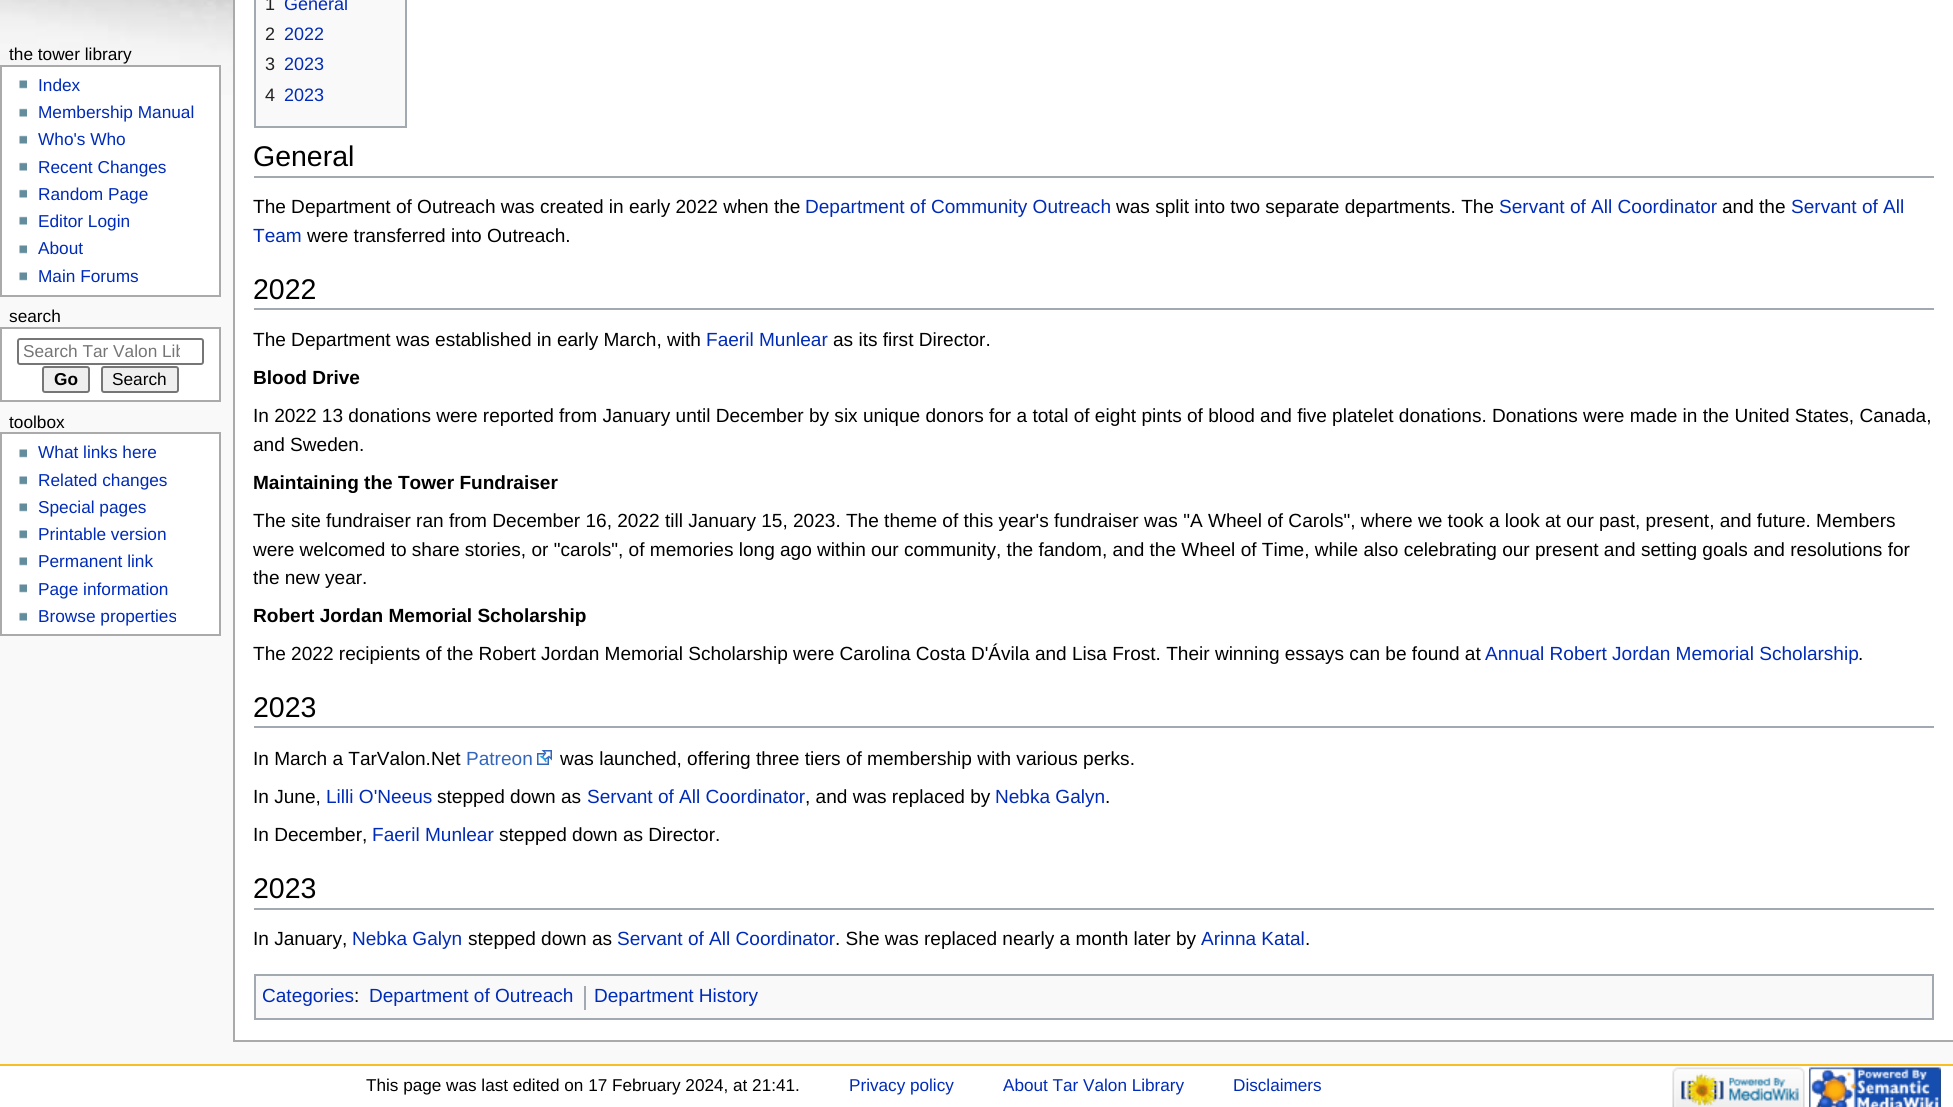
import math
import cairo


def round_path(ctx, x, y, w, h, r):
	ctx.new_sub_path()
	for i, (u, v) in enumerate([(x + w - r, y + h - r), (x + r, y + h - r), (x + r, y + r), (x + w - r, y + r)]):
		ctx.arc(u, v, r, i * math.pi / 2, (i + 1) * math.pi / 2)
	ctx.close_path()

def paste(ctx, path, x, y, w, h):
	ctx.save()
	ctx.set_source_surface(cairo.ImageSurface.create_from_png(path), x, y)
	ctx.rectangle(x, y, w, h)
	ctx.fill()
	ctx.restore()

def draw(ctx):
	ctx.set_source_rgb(0.976, 0.976, 0.976)
	ctx.paint()
	paste(ctx, 'media/1.png', 0, 0, 233, 95)
	ctx.select_font_face('Liberation Sans')
	ctx.set_font_size(17.25)
	ctx.set_source_rgb(0, 0, 0)
	ctx.move_to(9, 60)
	ctx.show_text('the tower library')
	ctx.set_source_rgb(1, 1, 1)
	ctx.rectangle(1, 66, 219, 230)
	ctx.fill_preserve()
	ctx.set_source_rgb(0.667, 0.667, 0.667)
	ctx.stroke()
	paste(ctx, 'media/2.png', 19, 80, 8, 9)
	ctx.set_source_rgb(0, 0.169, 0.722)
	ctx.move_to(38, 91)
	ctx.show_text('Index')
	paste(ctx, 'media/3.png', 19, 108, 8, 9)
	ctx.move_to(38, 118)
	ctx.show_text('Membership Manual')
	paste(ctx, 'media/3.png', 19, 135, 8, 9)
	ctx.move_to(38, 145)
	ctx.show_text('Who\'s Who')
	paste(ctx, 'media/3.png', 19, 162, 8, 9)
	ctx.move_to(38, 173)
	ctx.show_text('Recent Changes')
	paste(ctx, 'media/3.png', 19, 189, 8, 9)
	ctx.move_to(38, 200)
	ctx.show_text('Random Page')
	paste(ctx, 'media/3.png', 19, 216, 8, 9)
	ctx.move_to(38, 227)
	ctx.show_text('Editor Login')
	paste(ctx, 'media/2.png', 19, 245, 8, 9)
	ctx.move_to(38, 254)
	ctx.show_text('About')
	paste(ctx, 'media/2.png', 19, 272, 8, 9)
	ctx.move_to(38, 282)
	ctx.show_text('Main Forums')
	ctx.set_source_rgb(0, 0, 0)
	ctx.move_to(9, 322)
	ctx.show_text('search')
	ctx.set_source_rgb(1, 1, 1)
	ctx.rectangle(1, 328, 219, 73)
	ctx.fill_preserve()
	ctx.set_source_rgb(0.667, 0.667, 0.667)
	ctx.stroke()
	round_path(ctx, 18, 339, 185, 25, 2)
	ctx.set_source_rgb(0.463, 0.463, 0.463)
	ctx.stroke()
	ctx.save()
	ctx.rectangle(23, 342, 157, 18)
	ctx.clip()
	ctx.set_source_rgb(0.459, 0.459, 0.459)
	ctx.move_to(23, 357)
	ctx.show_text('Search Tar Valon Lib')
	ctx.restore()
	ctx.set_source_rgb(0.937, 0.937, 0.937)
	round_path(ctx, 43, 367, 46, 25, 2)
	ctx.fill_preserve()
	ctx.set_source_rgb(0.463, 0.463, 0.463)
	ctx.stroke()
	ctx.select_font_face('Liberation Sans', cairo.FONT_SLANT_NORMAL, cairo.FONT_WEIGHT_BOLD)
	ctx.set_source_rgb(0, 0, 0)
	ctx.move_to(54, 385)
	ctx.show_text('Go')
	ctx.set_source_rgb(0.937, 0.937, 0.937)
	round_path(ctx, 102, 367, 76, 25, 2)
	ctx.fill_preserve()
	ctx.set_source_rgb(0.463, 0.463, 0.463)
	ctx.stroke()
	ctx.select_font_face('Liberation Sans')
	ctx.set_source_rgb(0, 0, 0)
	ctx.move_to(112, 385)
	ctx.show_text('Search')
	ctx.move_to(9, 428)
	ctx.show_text('toolbox')
	ctx.set_source_rgb(1, 1, 1)
	ctx.rectangle(1, 433, 219, 202)
	ctx.fill_preserve()
	ctx.set_source_rgb(0.667, 0.667, 0.667)
	ctx.stroke()
	paste(ctx, 'media/2.png', 19, 449, 8, 9)
	ctx.set_source_rgb(0, 0.169, 0.722)
	ctx.move_to(38, 458)
	ctx.show_text('What links here')
	paste(ctx, 'media/2.png', 19, 476, 8, 9)
	ctx.move_to(38, 486)
	ctx.show_text('Related changes')
	paste(ctx, 'media/2.png', 19, 503, 8, 9)
	ctx.move_to(38, 513)
	ctx.show_text('Special pages')
	paste(ctx, 'media/2.png', 19, 530, 8, 9)
	ctx.move_to(38, 540)
	ctx.show_text('Printable version')
	paste(ctx, 'media/2.png', 19, 557, 8, 9)
	ctx.move_to(38, 567)
	ctx.show_text('Permanent link')
	paste(ctx, 'media/2.png', 19, 584, 8, 9)
	ctx.move_to(38, 595)
	ctx.show_text('Page information')
	paste(ctx, 'media/3.png', 19, 612, 8, 9)
	ctx.move_to(38, 622)
	ctx.show_text('Browse properties')
	ctx.set_source_rgb(1, 1, 1)
	ctx.rectangle(235, 0, 1718, 1040)
	ctx.fill()
	ctx.set_source_rgb(0.667, 0.667, 0.667)
	ctx.rectangle(233, 1040, 1720, 2)
	ctx.rectangle(233, 0, 2, 1041)
	ctx.fill()
	ctx.set_source_rgb(0.973, 0.976, 0.98)
	ctx.rectangle(255, -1, 151, 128)
	ctx.fill_preserve()
	ctx.set_source_rgb(0.635, 0.663, 0.694)
	ctx.stroke()
	ctx.set_font_size(18)
	ctx.set_source_rgb(0.133, 0.133, 0.133)
	ctx.move_to(265, 10)
	ctx.show_text('1')
	ctx.set_source_rgb(0, 0.169, 0.722)
	ctx.move_to(284, 10)
	ctx.show_text('General')
	ctx.set_source_rgb(0.133, 0.133, 0.133)
	ctx.move_to(265, 40)
	ctx.show_text('2')
	ctx.set_source_rgb(0, 0.169, 0.722)
	ctx.move_to(284, 40)
	ctx.show_text('2022')
	ctx.set_source_rgb(0.133, 0.133, 0.133)
	ctx.move_to(265, 70)
	ctx.show_text('3')
	ctx.set_source_rgb(0, 0.169, 0.722)
	ctx.move_to(284, 70)
	ctx.show_text('2023')
	ctx.set_source_rgb(0.133, 0.133, 0.133)
	ctx.move_to(265, 101)
	ctx.show_text('4')
	ctx.set_source_rgb(0, 0.169, 0.722)
	ctx.move_to(284, 101)
	ctx.show_text('2023')
	ctx.set_source_rgb(0.635, 0.663, 0.694)
	ctx.rectangle(254, 176, 1680, 2)
	ctx.fill()
	ctx.set_font_size(28.5)
	ctx.set_source_rgb(0, 0, 0)
	ctx.move_to(253, 166)
	ctx.show_text('General')
	ctx.set_font_size(19.05)
	ctx.move_to(253, 213)
	ctx.show_text('The Department of Outreach was created in early 2022 when the')
	ctx.set_source_rgb(0, 0.169, 0.722)
	ctx.move_to(805, 213)
	ctx.show_text('Department of Community Outreach')
	ctx.set_source_rgb(0, 0, 0)
	ctx.move_to(1116, 213)
	ctx.show_text('was split into two separate departments. The')
	ctx.set_source_rgb(0, 0.169, 0.722)
	ctx.move_to(1499, 213)
	ctx.show_text('Servant of All Coordinator')
	ctx.set_source_rgb(0, 0, 0)
	ctx.move_to(1722, 213)
	ctx.show_text('and the')
	ctx.set_source_rgb(0, 0.169, 0.722)
	ctx.move_to(1791, 213)
	ctx.show_text('Servant of All')
	ctx.move_to(253, 242)
	ctx.show_text('Team')
	ctx.set_source_rgb(0, 0, 0)
	ctx.move_to(307, 242)
	ctx.show_text('were transferred into Outreach.')
	ctx.set_source_rgb(0.635, 0.663, 0.694)
	ctx.rectangle(254, 308, 1680, 2)
	ctx.fill()
	ctx.set_font_size(28.5)
	ctx.set_source_rgb(0, 0, 0)
	ctx.move_to(253, 299)
	ctx.show_text('2022')
	ctx.set_font_size(19.05)
	ctx.move_to(253, 346)
	ctx.show_text('The Department was established in early March, with')
	ctx.set_source_rgb(0, 0.169, 0.722)
	ctx.move_to(706, 346)
	ctx.show_text('Faeril Munlear')
	ctx.set_source_rgb(0, 0, 0)
	ctx.move_to(833, 346)
	ctx.show_text('as its first Director.')
	ctx.select_font_face('Liberation Sans', cairo.FONT_SLANT_NORMAL, cairo.FONT_WEIGHT_BOLD)
	ctx.move_to(253, 384)
	ctx.show_text('Blood Drive')
	ctx.select_font_face('Liberation Sans')
	ctx.move_to(253, 422)
	ctx.show_text('In 2022 13 donations were reported from January until December by six unique donors for a total of eight pints of blood and five platelet donations. Donations were made in the United States, Canada,')
	ctx.move_to(253, 451)
	ctx.show_text('and Sweden.')
	ctx.select_font_face('Liberation Sans', cairo.FONT_SLANT_NORMAL, cairo.FONT_WEIGHT_BOLD)
	ctx.move_to(253, 489)
	ctx.show_text('Maintaining the Tower Fundraiser')
	ctx.select_font_face('Liberation Sans')
	for x, y, s in [
		(253, 527, 'The site fundraiser ran from December 16, 2022 till January 15, 2023. The theme of this year\'s fundraiser was "A Wheel of Carols", where we took a look at our past, present, and future. Members'),
		(253, 556, 'were welcomed to share stories, or "carols", of memories long ago within our community, the fandom, and the Wheel of Time, while also celebrating our present and setting goals and resolutions for'),
		(253, 584, 'the new year.'),
	]:
		ctx.move_to(x, y)
		ctx.show_text(s)
	ctx.select_font_face('Liberation Sans', cairo.FONT_SLANT_NORMAL, cairo.FONT_WEIGHT_BOLD)
	ctx.move_to(253, 622)
	ctx.show_text('Robert Jordan Memorial Scholarship')
	ctx.select_font_face('Liberation Sans')
	ctx.move_to(253, 660)
	ctx.show_text('The 2022 recipients of the Robert Jordan Memorial Scholarship were Carolina Costa D\'Ávila and Lisa Frost. Their winning essays can be found at')
	ctx.set_source_rgb(0, 0.169, 0.722)
	ctx.move_to(1485, 660)
	ctx.show_text('Annual Robert Jordan Memorial Scholarship')
	ctx.set_source_rgb(0, 0, 0)
	ctx.move_to(1858, 660)
	ctx.show_text('.')
	ctx.set_source_rgb(0.635, 0.663, 0.694)
	ctx.rectangle(254, 726, 1680, 2)
	ctx.fill()
	ctx.set_font_size(28.5)
	ctx.set_source_rgb(0, 0, 0)
	ctx.move_to(253, 717)
	ctx.show_text('2023')
	ctx.set_font_size(19.05)
	ctx.move_to(253, 765)
	ctx.show_text('In March a TarValon.Net')
	ctx.set_source_rgb(0.2, 0.4, 0.733)
	ctx.move_to(466, 765)
	ctx.show_text('Patreon')
	paste(ctx, 'media/4.png', 537, 750, 15, 15)
	ctx.set_source_rgb(0, 0, 0)
	ctx.move_to(560, 765)
	ctx.show_text('was launched, offering three tiers of membership with various perks.')
	ctx.move_to(253, 803)
	ctx.show_text('In June,')
	ctx.set_source_rgb(0, 0.169, 0.722)
	ctx.move_to(326, 803)
	ctx.show_text('Lilli O\'Neeus')
	ctx.set_source_rgb(0, 0, 0)
	ctx.move_to(437, 803)
	ctx.show_text('stepped down as')
	ctx.set_source_rgb(0, 0.169, 0.722)
	ctx.move_to(587, 803)
	ctx.show_text('Servant of All Coordinator')
	ctx.set_source_rgb(0, 0, 0)
	ctx.move_to(805, 803)
	ctx.show_text(', and was replaced by')
	ctx.set_source_rgb(0, 0.169, 0.722)
	ctx.move_to(995, 803)
	ctx.show_text('Nebka Galyn')
	ctx.set_source_rgb(0, 0, 0)
	ctx.move_to(1105, 803)
	ctx.show_text('.')
	ctx.move_to(253, 841)
	ctx.show_text('In December,')
	ctx.set_source_rgb(0, 0.169, 0.722)
	ctx.move_to(372, 841)
	ctx.show_text('Faeril Munlear')
	ctx.set_source_rgb(0, 0, 0)
	ctx.move_to(499, 841)
	ctx.show_text('stepped down as Director.')
	ctx.set_source_rgb(0.635, 0.663, 0.694)
	ctx.rectangle(254, 908, 1680, 2)
	ctx.fill()
	ctx.set_font_size(28.5)
	ctx.set_source_rgb(0, 0, 0)
	ctx.move_to(253, 898)
	ctx.show_text('2023')
	ctx.set_font_size(19.05)
	ctx.move_to(253, 945)
	ctx.show_text('In January,')
	ctx.set_source_rgb(0, 0.169, 0.722)
	ctx.move_to(352, 945)
	ctx.show_text('Nebka Galyn')
	ctx.set_source_rgb(0, 0, 0)
	ctx.move_to(468, 945)
	ctx.show_text('stepped down as')
	ctx.set_source_rgb(0, 0.169, 0.722)
	ctx.move_to(617, 945)
	ctx.show_text('Servant of All Coordinator')
	ctx.set_source_rgb(0, 0, 0)
	ctx.move_to(835, 945)
	ctx.show_text('. She was replaced nearly a month later by')
	ctx.set_source_rgb(0, 0.169, 0.722)
	ctx.move_to(1201, 945)
	ctx.show_text('Arinna Katal')
	ctx.set_source_rgb(0, 0, 0)
	ctx.move_to(1305, 945)
	ctx.show_text('.')
	ctx.set_source_rgb(0.973, 0.976, 0.98)
	ctx.rectangle(255, 975, 1678, 44)
	ctx.fill_preserve()
	ctx.set_source_rgb(0.635, 0.663, 0.694)
	ctx.stroke()
	ctx.set_source_rgb(0, 0.169, 0.722)
	ctx.move_to(262, 1002)
	ctx.show_text('Categories')
	ctx.set_source_rgb(0, 0, 0)
	ctx.move_to(354, 1002)
	ctx.show_text(':')
	ctx.set_source_rgb(0, 0.169, 0.722)
	ctx.move_to(369, 1002)
	ctx.show_text('Department of Outreach')
	ctx.set_source_rgb(0.635, 0.663, 0.694)
	ctx.rectangle(584, 986, 2, 24)
	ctx.fill()
	ctx.set_source_rgb(0, 0.169, 0.722)
	ctx.move_to(594, 1002)
	ctx.show_text('Department History')
	ctx.set_source_rgb(1, 1, 1)
	ctx.rectangle(0, 1066, 1953, 41)
	ctx.fill()
	ctx.set_source_rgb(0.98, 0.741, 0.137)
	ctx.rectangle(0, 1064, 1953, 2)
	ctx.fill()
	ctx.set_font_size(17.15)
	ctx.set_source_rgb(0, 0, 0)
	ctx.move_to(366, 1091)
	ctx.show_text('This page was last edited on 17 February 2024, at 21:41.')
	ctx.set_source_rgb(0, 0.169, 0.722)
	for x, y, s in [
		(849, 1091, 'Privacy policy'),
		(1003, 1091, 'About Tar Valon Library'),
		(1233, 1091, 'Disclaimers'),
	]:
		ctx.move_to(x, y)
		ctx.show_text(s)
	paste(ctx, 'media/5.png', 1672, 1067, 133, 40)
	paste(ctx, 'media/6.png', 1809, 1067, 132, 40)


surface = cairo.ImageSurface(cairo.FORMAT_RGB24, 1953, 1107)
ctx = cairo.Context(surface)
options = cairo.FontOptions()
options.set_hint_metrics(cairo.HINT_METRICS_OFF)
options.set_hint_style(cairo.HINT_STYLE_NONE)
ctx.set_font_options(options)
ctx.set_miter_limit(4)
draw(ctx)
surface.write_to_png('image.png')
